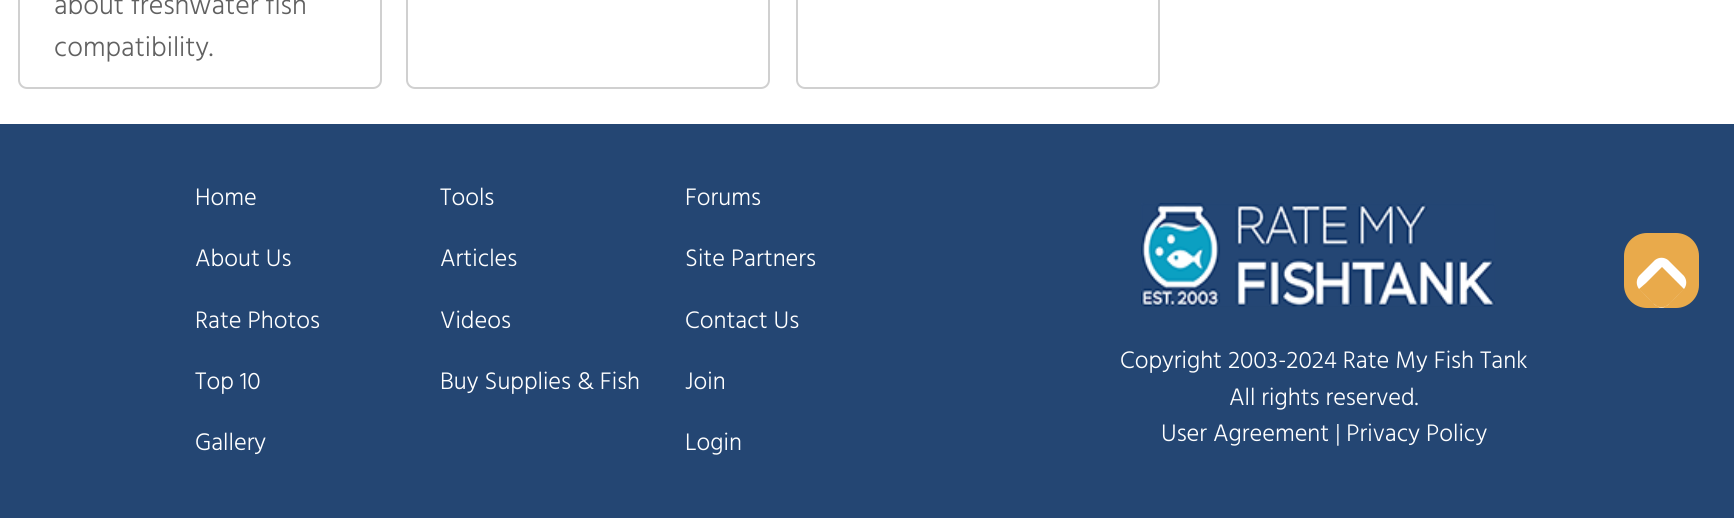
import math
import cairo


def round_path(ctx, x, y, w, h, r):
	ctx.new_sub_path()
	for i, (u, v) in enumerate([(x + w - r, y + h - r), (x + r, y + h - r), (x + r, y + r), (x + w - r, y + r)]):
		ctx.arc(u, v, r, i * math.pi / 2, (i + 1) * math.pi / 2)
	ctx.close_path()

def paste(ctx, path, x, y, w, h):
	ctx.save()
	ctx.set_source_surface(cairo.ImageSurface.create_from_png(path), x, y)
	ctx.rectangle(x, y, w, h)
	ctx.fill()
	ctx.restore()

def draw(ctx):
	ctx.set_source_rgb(1, 1, 1)
	ctx.paint()
	round_path(ctx, 19, -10, 362, 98, 8)
	ctx.set_source_rgb(0.816, 0.816, 0.816)
	ctx.stroke()
	ctx.select_font_face('Hind Light')
	ctx.set_font_size(28)
	ctx.set_source_rgb(0.38, 0.38, 0.38)
	ctx.move_to(54, 14)
	ctx.show_text('about freshwater fish')
	ctx.move_to(54, 56)
	ctx.show_text('compatibility.')
	round_path(ctx, 407, -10, 362, 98, 8)
	ctx.set_source_rgb(0.816, 0.816, 0.816)
	ctx.stroke()
	round_path(ctx, 797, -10, 362, 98, 8)
	ctx.stroke()
	ctx.set_source_rgb(0.141, 0.275, 0.451)
	ctx.rectangle(0, 124, 1734, 394)
	ctx.fill()
	ctx.set_font_size(24.5)
	ctx.set_source_rgb(1, 1, 1)
	for x, y, s in [
		(195, 205, 'Home'),
		(195, 266, 'About Us'),
		(195, 328, 'Rate Photos'),
		(195, 389, 'Top 10'),
		(195, 450, 'Gallery'),
		(440, 205, 'Tools'),
		(440, 266, 'Articles'),
		(440, 328, 'Videos'),
		(440, 389, 'Buy Supplies & Fish'),
		(685, 205, 'Forums'),
		(685, 266, 'Site Partners'),
		(685, 328, 'Contact Us'),
		(685, 389, 'Join'),
		(685, 450, 'Login'),
	]:
		ctx.move_to(x, y)
		ctx.show_text(s)
	paste(ctx, 'media/1.png', 1141, 203, 354, 104)
	for x, y, s in [
		(1120, 368, 'Copyright 2003-2024 Rate My Fish Tank'),
		(1229, 405, 'All rights reserved.'),
		(1161, 441, 'User Agreement | Privacy Policy'),
	]:
		ctx.move_to(x, y)
		ctx.show_text(s)
	ctx.set_source_rgb(0.914, 0.667, 0.294)
	round_path(ctx, 1624, 233, 75, 75, 23)
	ctx.fill()
	ctx.set_source_rgb(1, 1, 1)
	ctx.set_fill_rule(cairo.FILL_RULE_EVEN_ODD)
	ctx.new_path()
	ctx.move_to(1639, 276)
	ctx.line_to(1655, 260)
	ctx.curve_to(1659, 257, 1664, 257, 1668, 260)
	ctx.line_to(1684, 276)
	ctx.curve_to(1687, 280, 1687, 285, 1684, 289)
	ctx.line_to(1668, 305)
	ctx.curve_to(1664, 308, 1659, 308, 1655, 305)
	ctx.line_to(1639, 289)
	ctx.curve_to(1636, 285, 1636, 280, 1639, 276)
	ctx.close_path()
	ctx.move_to(1646, 283)
	ctx.line_to(1662, 267)
	ctx.line_to(1684, 289)
	ctx.curve_to(1659, 314, 1664, 314, 1639, 289)
	ctx.close_path()
	ctx.fill()


surface = cairo.ImageSurface(cairo.FORMAT_RGB24, 1734, 518)
ctx = cairo.Context(surface)
options = cairo.FontOptions()
options.set_hint_metrics(cairo.HINT_METRICS_OFF)
options.set_hint_style(cairo.HINT_STYLE_NONE)
ctx.set_font_options(options)
ctx.set_miter_limit(4)
draw(ctx)
surface.write_to_png('image.png')
